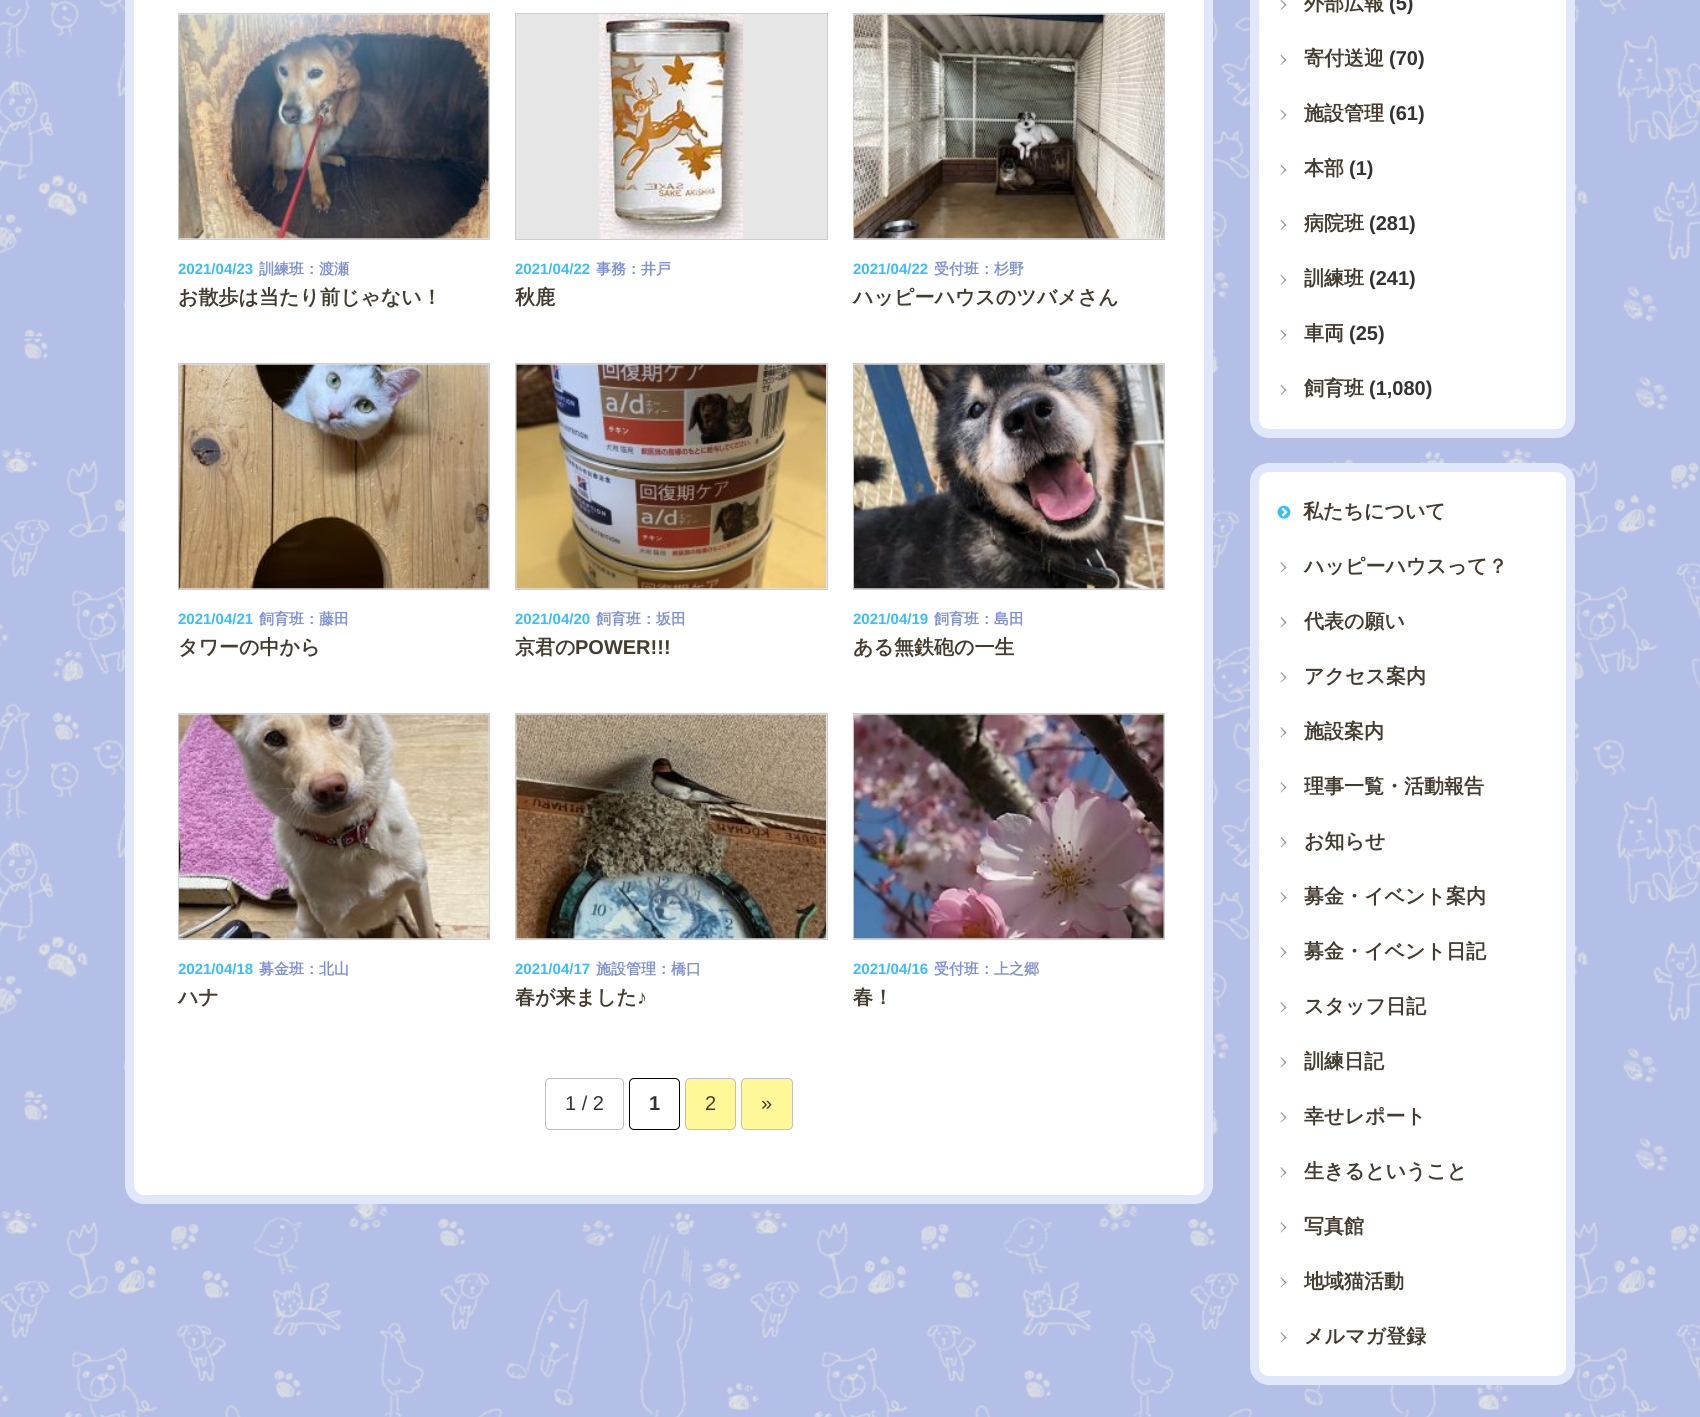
import math
import cairo


def round_path(ctx, x, y, w, h, r):
	ctx.new_sub_path()
	for i, (u, v) in enumerate([(x + w - r, y + h - r), (x + r, y + h - r), (x + r, y + r), (x + w - r, y + r)]):
		ctx.arc(u, v, r, i * math.pi / 2, (i + 1) * math.pi / 2)
	ctx.close_path()

def paste(ctx, path, x, y, w, h):
	ctx.save()
	ctx.set_source_surface(cairo.ImageSurface.create_from_png(path), x, y)
	ctx.rectangle(x, y, w, h)
	ctx.fill()
	ctx.restore()

def draw(ctx):
	ctx.set_source_rgb(1, 1, 1)
	ctx.paint()
	paste(ctx, 'media/1.png', 0, 0, 1700, 1417)
	ctx.set_source_rgb(1, 1, 1)
	round_path(ctx, 129.5, -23.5, 1079, 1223, 14.5)
	ctx.fill_preserve()
	ctx.set_source_rgb(0.882, 0.906, 0.984)
	ctx.set_line_width(9)
	ctx.stroke()
	ctx.set_source_rgb(0.902, 0.902, 0.902)
	ctx.rectangle(178.5, 13.5, 311, 226)
	ctx.fill_preserve()
	ctx.set_source_rgb(0.8, 0.8, 0.8)
	ctx.set_line_width(1)
	ctx.stroke()
	paste(ctx, 'media/2.png', 178, 14, 311, 225)
	ctx.select_font_face('Liberation Sans', cairo.FONT_SLANT_NORMAL, cairo.FONT_WEIGHT_BOLD)
	ctx.set_font_size(15)
	ctx.set_source_rgb(0.216, 0.745, 1)
	ctx.move_to(178, 274)
	ctx.show_text('2021/04/23')
	ctx.select_font_face('WenQuanYi Zen Hei', cairo.FONT_SLANT_NORMAL, cairo.FONT_WEIGHT_BOLD)
	ctx.set_source_rgb(0.502, 0.573, 0.831)
	ctx.move_to(259, 274)
	ctx.show_text('訓練班：渡瀬')
	ctx.set_font_size(20)
	ctx.set_source_rgb(0.271, 0.235, 0.188)
	ctx.move_to(178, 304)
	ctx.show_text('お散歩は当たり前じゃない！')
	ctx.set_source_rgb(0.902, 0.902, 0.902)
	ctx.rectangle(515.5, 13.5, 312, 226)
	ctx.fill_preserve()
	ctx.set_source_rgb(0.8, 0.8, 0.8)
	ctx.stroke()
	paste(ctx, 'media/3.png', 599, 14, 144, 225)
	ctx.select_font_face('Liberation Sans', cairo.FONT_SLANT_NORMAL, cairo.FONT_WEIGHT_BOLD)
	ctx.set_font_size(15)
	ctx.set_source_rgb(0.216, 0.745, 1)
	ctx.move_to(515, 274)
	ctx.show_text('2021/04/22')
	ctx.select_font_face('WenQuanYi Zen Hei', cairo.FONT_SLANT_NORMAL, cairo.FONT_WEIGHT_BOLD)
	ctx.set_source_rgb(0.502, 0.573, 0.831)
	ctx.move_to(596, 274)
	ctx.show_text('事務：井戸')
	ctx.set_font_size(20)
	ctx.set_source_rgb(0.271, 0.235, 0.188)
	ctx.move_to(515, 304)
	ctx.show_text('秋鹿')
	ctx.set_source_rgb(0.902, 0.902, 0.902)
	ctx.rectangle(853.5, 13.5, 311, 226)
	ctx.fill_preserve()
	ctx.set_source_rgb(0.8, 0.8, 0.8)
	ctx.stroke()
	paste(ctx, 'media/4.png', 853, 14, 311, 225)
	ctx.select_font_face('Liberation Sans', cairo.FONT_SLANT_NORMAL, cairo.FONT_WEIGHT_BOLD)
	ctx.set_font_size(15)
	ctx.set_source_rgb(0.216, 0.745, 1)
	ctx.move_to(853, 274)
	ctx.show_text('2021/04/22')
	ctx.select_font_face('WenQuanYi Zen Hei', cairo.FONT_SLANT_NORMAL, cairo.FONT_WEIGHT_BOLD)
	ctx.set_source_rgb(0.502, 0.573, 0.831)
	ctx.move_to(934, 274)
	ctx.show_text('受付班：杉野')
	ctx.set_font_size(20)
	ctx.set_source_rgb(0.271, 0.235, 0.188)
	ctx.move_to(853, 304)
	ctx.show_text('ハッピーハウスのツバメさん')
	ctx.set_source_rgb(0.902, 0.902, 0.902)
	ctx.rectangle(178.5, 363.5, 311, 226)
	ctx.fill_preserve()
	ctx.set_source_rgb(0.8, 0.8, 0.8)
	ctx.stroke()
	paste(ctx, 'media/5.png', 178, 364, 311, 225)
	ctx.select_font_face('Liberation Sans', cairo.FONT_SLANT_NORMAL, cairo.FONT_WEIGHT_BOLD)
	ctx.set_font_size(15)
	ctx.set_source_rgb(0.216, 0.745, 1)
	ctx.move_to(178, 624)
	ctx.show_text('2021/04/21')
	ctx.select_font_face('WenQuanYi Zen Hei', cairo.FONT_SLANT_NORMAL, cairo.FONT_WEIGHT_BOLD)
	ctx.set_source_rgb(0.502, 0.573, 0.831)
	ctx.move_to(259, 624)
	ctx.show_text('飼育班：藤田')
	ctx.set_font_size(20)
	ctx.set_source_rgb(0.271, 0.235, 0.188)
	ctx.move_to(178, 654)
	ctx.show_text('タワーの中から')
	ctx.set_source_rgb(0.902, 0.902, 0.902)
	ctx.rectangle(515.5, 363.5, 312, 226)
	ctx.fill_preserve()
	ctx.set_source_rgb(0.8, 0.8, 0.8)
	ctx.stroke()
	paste(ctx, 'media/6.png', 516, 364, 311, 225)
	ctx.select_font_face('Liberation Sans', cairo.FONT_SLANT_NORMAL, cairo.FONT_WEIGHT_BOLD)
	ctx.set_font_size(15)
	ctx.set_source_rgb(0.216, 0.745, 1)
	ctx.move_to(515, 624)
	ctx.show_text('2021/04/20')
	ctx.select_font_face('WenQuanYi Zen Hei', cairo.FONT_SLANT_NORMAL, cairo.FONT_WEIGHT_BOLD)
	ctx.set_source_rgb(0.502, 0.573, 0.831)
	ctx.move_to(596, 624)
	ctx.show_text('飼育班：坂田')
	ctx.set_font_size(20)
	ctx.set_source_rgb(0.271, 0.235, 0.188)
	ctx.move_to(515, 654)
	ctx.show_text('京君の')
	ctx.select_font_face('Liberation Sans', cairo.FONT_SLANT_NORMAL, cairo.FONT_WEIGHT_BOLD)
	ctx.move_to(575, 654)
	ctx.show_text('POWER!!!')
	ctx.set_source_rgb(0.902, 0.902, 0.902)
	ctx.rectangle(853.5, 363.5, 311, 226)
	ctx.fill_preserve()
	ctx.set_source_rgb(0.8, 0.8, 0.8)
	ctx.stroke()
	paste(ctx, 'media/7.png', 853, 364, 311, 225)
	ctx.set_font_size(15)
	ctx.set_source_rgb(0.216, 0.745, 1)
	ctx.move_to(853, 624)
	ctx.show_text('2021/04/19')
	ctx.select_font_face('WenQuanYi Zen Hei', cairo.FONT_SLANT_NORMAL, cairo.FONT_WEIGHT_BOLD)
	ctx.set_source_rgb(0.502, 0.573, 0.831)
	ctx.move_to(934, 624)
	ctx.show_text('飼育班：島田')
	ctx.set_font_size(20)
	ctx.set_source_rgb(0.271, 0.235, 0.188)
	ctx.move_to(853, 654)
	ctx.show_text('ある無鉄砲の一生')
	ctx.set_source_rgb(0.902, 0.902, 0.902)
	ctx.rectangle(178.5, 713.5, 311, 226)
	ctx.fill_preserve()
	ctx.set_source_rgb(0.8, 0.8, 0.8)
	ctx.stroke()
	paste(ctx, 'media/8.png', 178, 714, 311, 225)
	ctx.select_font_face('Liberation Sans', cairo.FONT_SLANT_NORMAL, cairo.FONT_WEIGHT_BOLD)
	ctx.set_font_size(15)
	ctx.set_source_rgb(0.216, 0.745, 1)
	ctx.move_to(178, 974)
	ctx.show_text('2021/04/18')
	ctx.select_font_face('WenQuanYi Zen Hei', cairo.FONT_SLANT_NORMAL, cairo.FONT_WEIGHT_BOLD)
	ctx.set_source_rgb(0.502, 0.573, 0.831)
	ctx.move_to(259, 974)
	ctx.show_text('募金班：北山')
	ctx.set_font_size(20)
	ctx.set_source_rgb(0.271, 0.235, 0.188)
	ctx.move_to(178, 1004)
	ctx.show_text('ハナ')
	ctx.set_source_rgb(0.902, 0.902, 0.902)
	ctx.rectangle(515.5, 713.5, 312, 226)
	ctx.fill_preserve()
	ctx.set_source_rgb(0.8, 0.8, 0.8)
	ctx.stroke()
	paste(ctx, 'media/9.png', 516, 714, 311, 225)
	ctx.select_font_face('Liberation Sans', cairo.FONT_SLANT_NORMAL, cairo.FONT_WEIGHT_BOLD)
	ctx.set_font_size(15)
	ctx.set_source_rgb(0.216, 0.745, 1)
	ctx.move_to(515, 974)
	ctx.show_text('2021/04/17')
	ctx.select_font_face('WenQuanYi Zen Hei', cairo.FONT_SLANT_NORMAL, cairo.FONT_WEIGHT_BOLD)
	ctx.set_source_rgb(0.502, 0.573, 0.831)
	ctx.move_to(596, 974)
	ctx.show_text('施設管理：橋口')
	ctx.set_font_size(20)
	ctx.set_source_rgb(0.271, 0.235, 0.188)
	ctx.move_to(515, 1004)
	ctx.show_text('春が来ました')
	ctx.select_font_face('Liberation Sans', cairo.FONT_SLANT_NORMAL, cairo.FONT_WEIGHT_BOLD)
	ctx.move_to(637, 1004)
	ctx.show_text('♪')
	ctx.set_source_rgb(0.902, 0.902, 0.902)
	ctx.rectangle(853.5, 713.5, 311, 226)
	ctx.fill_preserve()
	ctx.set_source_rgb(0.8, 0.8, 0.8)
	ctx.stroke()
	paste(ctx, 'media/10.png', 853, 714, 311, 225)
	ctx.set_font_size(15)
	ctx.set_source_rgb(0.216, 0.745, 1)
	ctx.move_to(853, 974)
	ctx.show_text('2021/04/16')
	ctx.select_font_face('WenQuanYi Zen Hei', cairo.FONT_SLANT_NORMAL, cairo.FONT_WEIGHT_BOLD)
	ctx.set_source_rgb(0.502, 0.573, 0.831)
	ctx.move_to(934, 974)
	ctx.show_text('受付班：上之郷')
	ctx.set_font_size(20)
	ctx.set_source_rgb(0.271, 0.235, 0.188)
	ctx.move_to(853, 1004)
	ctx.show_text('春！')
	round_path(ctx, 545.5, 1078.5, 78, 51, 4.5)
	ctx.set_source_rgb(0.749, 0.749, 0.749)
	ctx.stroke()
	ctx.select_font_face('Liberation Sans')
	ctx.set_source_rgb(0.2, 0.2, 0.2)
	ctx.move_to(565, 1110)
	ctx.show_text('1 / 2')
	round_path(ctx, 629.5, 1078.5, 50, 51, 4.5)
	ctx.set_source_rgb(0, 0, 0)
	ctx.stroke()
	ctx.select_font_face('Liberation Sans', cairo.FONT_SLANT_NORMAL, cairo.FONT_WEIGHT_BOLD)
	ctx.set_source_rgb(0.2, 0.2, 0.2)
	ctx.move_to(649, 1110)
	ctx.show_text('1')
	ctx.set_source_rgb(1, 0.969, 0.6)
	round_path(ctx, 685.5, 1078.5, 50, 51, 4.5)
	ctx.fill_preserve()
	ctx.set_source_rgb(0.749, 0.749, 0.749)
	ctx.stroke()
	ctx.select_font_face('Liberation Sans')
	ctx.set_source_rgb(0.271, 0.235, 0.188)
	ctx.move_to(705, 1110)
	ctx.show_text('2')
	ctx.set_source_rgb(1, 0.969, 0.6)
	round_path(ctx, 741.5, 1078.5, 51, 51, 4.5)
	ctx.fill_preserve()
	ctx.set_source_rgb(0.749, 0.749, 0.749)
	ctx.stroke()
	ctx.set_source_rgb(0.271, 0.235, 0.188)
	ctx.move_to(761, 1110)
	ctx.show_text('»')
	ctx.set_source_rgb(1, 1, 1)
	round_path(ctx, 1254.5, -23.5, 316, 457, 14.5)
	ctx.fill_preserve()
	ctx.set_source_rgb(0.882, 0.906, 0.984)
	ctx.set_line_width(9)
	ctx.stroke()
	ctx.set_source_rgb(0.6, 0.6, 0.6)
	ctx.new_path()
	ctx.move_to(1280.5, 0.5)
	ctx.line_to(1281, -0.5)
	ctx.line_to(1286.5, 5)
	ctx.line_to(1285.5, 6)
	ctx.close_path()
	ctx.fill()
	ctx.new_path()
	ctx.move_to(1280.5, 9.5)
	ctx.line_to(1285.5, 4)
	ctx.line_to(1286.5, 5)
	ctx.line_to(1281, 10)
	ctx.close_path()
	ctx.move_to(1280.5, 55.5)
	ctx.line_to(1281, 54.5)
	ctx.line_to(1286.5, 60)
	ctx.line_to(1285.5, 61)
	ctx.close_path()
	ctx.fill()
	ctx.select_font_face('WenQuanYi Zen Hei', cairo.FONT_SLANT_NORMAL, cairo.FONT_WEIGHT_BOLD)
	ctx.set_source_rgb(0.271, 0.235, 0.188)
	ctx.move_to(1304, 10)
	ctx.show_text('外部広報')
	ctx.select_font_face('Liberation Sans', cairo.FONT_SLANT_NORMAL, cairo.FONT_WEIGHT_BOLD)
	ctx.set_source_rgb(0.2, 0.2, 0.2)
	ctx.move_to(1389, 10)
	ctx.show_text('(5)')
	ctx.set_source_rgb(0.6, 0.6, 0.6)
	ctx.new_path()
	ctx.move_to(1280.5, 64.5)
	ctx.line_to(1285.5, 59)
	ctx.line_to(1286.5, 60)
	ctx.line_to(1281, 65)
	ctx.close_path()
	ctx.move_to(1280.5, 110.5)
	ctx.line_to(1281, 109.5)
	ctx.line_to(1286.5, 115)
	ctx.line_to(1285.5, 116)
	ctx.close_path()
	ctx.fill()
	ctx.select_font_face('WenQuanYi Zen Hei', cairo.FONT_SLANT_NORMAL, cairo.FONT_WEIGHT_BOLD)
	ctx.set_source_rgb(0.271, 0.235, 0.188)
	ctx.move_to(1304, 65)
	ctx.show_text('寄付送迎')
	ctx.select_font_face('Liberation Sans', cairo.FONT_SLANT_NORMAL, cairo.FONT_WEIGHT_BOLD)
	ctx.set_source_rgb(0.2, 0.2, 0.2)
	ctx.move_to(1389, 65)
	ctx.show_text('(70)')
	ctx.set_source_rgb(0.6, 0.6, 0.6)
	ctx.new_path()
	ctx.move_to(1280.5, 119.5)
	ctx.line_to(1285.5, 114)
	ctx.line_to(1286.5, 115)
	ctx.line_to(1281, 120)
	ctx.close_path()
	ctx.move_to(1280.5, 165.5)
	ctx.line_to(1281, 164.5)
	ctx.line_to(1286.5, 170)
	ctx.line_to(1285.5, 171)
	ctx.close_path()
	ctx.fill()
	ctx.select_font_face('WenQuanYi Zen Hei', cairo.FONT_SLANT_NORMAL, cairo.FONT_WEIGHT_BOLD)
	ctx.set_source_rgb(0.271, 0.235, 0.188)
	ctx.move_to(1304, 120)
	ctx.show_text('施設管理')
	ctx.select_font_face('Liberation Sans', cairo.FONT_SLANT_NORMAL, cairo.FONT_WEIGHT_BOLD)
	ctx.set_source_rgb(0.2, 0.2, 0.2)
	ctx.move_to(1389, 120)
	ctx.show_text('(61)')
	ctx.set_source_rgb(0.6, 0.6, 0.6)
	ctx.new_path()
	ctx.move_to(1280.5, 174.5)
	ctx.line_to(1285.5, 169)
	ctx.line_to(1286.5, 170)
	ctx.line_to(1281, 175)
	ctx.close_path()
	ctx.move_to(1280.5, 220.5)
	ctx.line_to(1281, 219.5)
	ctx.line_to(1286.5, 225)
	ctx.line_to(1285.5, 226)
	ctx.close_path()
	ctx.fill()
	ctx.select_font_face('WenQuanYi Zen Hei', cairo.FONT_SLANT_NORMAL, cairo.FONT_WEIGHT_BOLD)
	ctx.set_source_rgb(0.271, 0.235, 0.188)
	ctx.move_to(1304, 175)
	ctx.show_text('本部')
	ctx.select_font_face('Liberation Sans', cairo.FONT_SLANT_NORMAL, cairo.FONT_WEIGHT_BOLD)
	ctx.set_source_rgb(0.2, 0.2, 0.2)
	ctx.move_to(1349, 175)
	ctx.show_text('(1)')
	ctx.set_source_rgb(0.6, 0.6, 0.6)
	ctx.new_path()
	ctx.move_to(1280.5, 229.5)
	ctx.line_to(1285.5, 224)
	ctx.line_to(1286.5, 225)
	ctx.line_to(1281, 230)
	ctx.close_path()
	ctx.move_to(1280.5, 275.5)
	ctx.line_to(1281, 274.5)
	ctx.line_to(1286.5, 280)
	ctx.line_to(1285.5, 281)
	ctx.close_path()
	ctx.fill()
	ctx.select_font_face('WenQuanYi Zen Hei', cairo.FONT_SLANT_NORMAL, cairo.FONT_WEIGHT_BOLD)
	ctx.set_source_rgb(0.271, 0.235, 0.188)
	ctx.move_to(1304, 230)
	ctx.show_text('病院班')
	ctx.select_font_face('Liberation Sans', cairo.FONT_SLANT_NORMAL, cairo.FONT_WEIGHT_BOLD)
	ctx.set_source_rgb(0.2, 0.2, 0.2)
	ctx.move_to(1369, 230)
	ctx.show_text('(281)')
	ctx.set_source_rgb(0.6, 0.6, 0.6)
	ctx.new_path()
	ctx.move_to(1280.5, 284.5)
	ctx.line_to(1285.5, 279)
	ctx.line_to(1286.5, 280)
	ctx.line_to(1281, 285)
	ctx.close_path()
	ctx.move_to(1280.5, 330.5)
	ctx.line_to(1281, 329.5)
	ctx.line_to(1286.5, 335)
	ctx.line_to(1285.5, 336)
	ctx.close_path()
	ctx.fill()
	ctx.select_font_face('WenQuanYi Zen Hei', cairo.FONT_SLANT_NORMAL, cairo.FONT_WEIGHT_BOLD)
	ctx.set_source_rgb(0.271, 0.235, 0.188)
	ctx.move_to(1304, 285)
	ctx.show_text('訓練班')
	ctx.select_font_face('Liberation Sans', cairo.FONT_SLANT_NORMAL, cairo.FONT_WEIGHT_BOLD)
	ctx.set_source_rgb(0.2, 0.2, 0.2)
	ctx.move_to(1369, 285)
	ctx.show_text('(241)')
	ctx.set_source_rgb(0.6, 0.6, 0.6)
	ctx.new_path()
	ctx.move_to(1280.5, 339.5)
	ctx.line_to(1285.5, 334)
	ctx.line_to(1286.5, 335)
	ctx.line_to(1281, 340)
	ctx.close_path()
	ctx.move_to(1280.5, 385.5)
	ctx.line_to(1281, 384.5)
	ctx.line_to(1286.5, 390)
	ctx.line_to(1285.5, 391)
	ctx.close_path()
	ctx.fill()
	ctx.select_font_face('WenQuanYi Zen Hei', cairo.FONT_SLANT_NORMAL, cairo.FONT_WEIGHT_BOLD)
	ctx.set_source_rgb(0.271, 0.235, 0.188)
	ctx.move_to(1304, 340)
	ctx.show_text('車両')
	ctx.select_font_face('Liberation Sans', cairo.FONT_SLANT_NORMAL, cairo.FONT_WEIGHT_BOLD)
	ctx.set_source_rgb(0.2, 0.2, 0.2)
	ctx.move_to(1349, 340)
	ctx.show_text('(25)')
	ctx.set_source_rgb(0.6, 0.6, 0.6)
	ctx.new_path()
	ctx.move_to(1280.5, 394.5)
	ctx.line_to(1285.5, 389)
	ctx.line_to(1286.5, 390)
	ctx.line_to(1281, 395)
	ctx.close_path()
	ctx.fill()
	ctx.select_font_face('WenQuanYi Zen Hei', cairo.FONT_SLANT_NORMAL, cairo.FONT_WEIGHT_BOLD)
	ctx.set_source_rgb(0.271, 0.235, 0.188)
	ctx.move_to(1304, 395)
	ctx.show_text('飼育班')
	ctx.select_font_face('Liberation Sans', cairo.FONT_SLANT_NORMAL, cairo.FONT_WEIGHT_BOLD)
	ctx.set_source_rgb(0.2, 0.2, 0.2)
	ctx.move_to(1369, 395)
	ctx.show_text('(1,080)')
	ctx.set_source_rgb(1, 1, 1)
	round_path(ctx, 1254.5, 467.5, 316, 913, 14.5)
	ctx.fill_preserve()
	ctx.set_source_rgb(0.882, 0.906, 0.984)
	ctx.stroke()
	paste(ctx, 'media/11.png', 1277, 505, 14, 14)
	ctx.select_font_face('WenQuanYi Zen Hei', cairo.FONT_SLANT_NORMAL, cairo.FONT_WEIGHT_BOLD)
	ctx.set_source_rgb(0.271, 0.235, 0.188)
	ctx.move_to(1303, 518)
	ctx.show_text('私たちについて')
	ctx.set_source_rgb(0.6, 0.6, 0.6)
	ctx.new_path()
	ctx.move_to(1280.5, 563)
	ctx.line_to(1281, 562)
	ctx.line_to(1286.5, 567.5)
	ctx.line_to(1285.5, 568.5)
	ctx.close_path()
	ctx.fill()
	ctx.new_path()
	ctx.move_to(1280.5, 572)
	ctx.line_to(1285.5, 566.5)
	ctx.line_to(1286.5, 567.5)
	ctx.line_to(1281, 572.5)
	ctx.close_path()
	ctx.move_to(1280.5, 618)
	ctx.line_to(1281.5, 617)
	ctx.line_to(1286.5, 622.5)
	ctx.line_to(1285.5, 623.5)
	ctx.close_path()
	ctx.fill()
	ctx.set_source_rgb(0.271, 0.235, 0.188)
	ctx.move_to(1304, 573)
	ctx.show_text('ハッピーハウスって？')
	ctx.set_source_rgb(0.6, 0.6, 0.6)
	ctx.new_path()
	ctx.move_to(1280.5, 627)
	ctx.line_to(1285.5, 621.5)
	ctx.line_to(1286.5, 622.5)
	ctx.line_to(1281, 627.5)
	ctx.close_path()
	ctx.move_to(1280.5, 673)
	ctx.line_to(1281, 672)
	ctx.line_to(1286.5, 677.5)
	ctx.line_to(1285.5, 678.5)
	ctx.close_path()
	ctx.fill()
	ctx.set_source_rgb(0.271, 0.235, 0.188)
	ctx.move_to(1304, 628)
	ctx.show_text('代表の願い')
	ctx.set_source_rgb(0.6, 0.6, 0.6)
	ctx.new_path()
	ctx.move_to(1280.5, 682)
	ctx.line_to(1285.5, 676.5)
	ctx.line_to(1286.5, 677.5)
	ctx.line_to(1281, 682.5)
	ctx.close_path()
	ctx.move_to(1280.5, 728)
	ctx.line_to(1281, 727)
	ctx.line_to(1286.5, 732.5)
	ctx.line_to(1285.5, 733.5)
	ctx.close_path()
	ctx.fill()
	ctx.set_source_rgb(0.271, 0.235, 0.188)
	ctx.move_to(1304, 683)
	ctx.show_text('アクセス案内')
	ctx.set_source_rgb(0.6, 0.6, 0.6)
	ctx.new_path()
	ctx.move_to(1280.5, 737)
	ctx.line_to(1285.5, 731.5)
	ctx.line_to(1286.5, 732.5)
	ctx.line_to(1281, 737.5)
	ctx.close_path()
	ctx.move_to(1280.5, 783)
	ctx.line_to(1281, 782)
	ctx.line_to(1286.5, 787.5)
	ctx.line_to(1285.5, 788.5)
	ctx.close_path()
	ctx.fill()
	ctx.set_source_rgb(0.271, 0.235, 0.188)
	ctx.move_to(1304, 738)
	ctx.show_text('施設案内')
	ctx.set_source_rgb(0.6, 0.6, 0.6)
	ctx.new_path()
	ctx.move_to(1280.5, 792)
	ctx.line_to(1285.5, 786.5)
	ctx.line_to(1286.5, 787.5)
	ctx.line_to(1281, 792.5)
	ctx.close_path()
	ctx.move_to(1280.5, 838)
	ctx.line_to(1281.5, 837)
	ctx.line_to(1286.5, 842.5)
	ctx.line_to(1285.5, 843.5)
	ctx.close_path()
	ctx.fill()
	ctx.set_source_rgb(0.271, 0.235, 0.188)
	ctx.move_to(1304, 793)
	ctx.show_text('理事一覧・活動報告')
	ctx.set_source_rgb(0.6, 0.6, 0.6)
	ctx.new_path()
	ctx.move_to(1280.5, 847)
	ctx.line_to(1285.5, 841.5)
	ctx.line_to(1286.5, 842.5)
	ctx.line_to(1281, 847.5)
	ctx.close_path()
	ctx.move_to(1280.5, 893)
	ctx.line_to(1281, 892)
	ctx.line_to(1286.5, 897.5)
	ctx.line_to(1285.5, 898.5)
	ctx.close_path()
	ctx.fill()
	ctx.set_source_rgb(0.271, 0.235, 0.188)
	ctx.move_to(1304, 848)
	ctx.show_text('お知らせ')
	ctx.set_source_rgb(0.6, 0.6, 0.6)
	ctx.new_path()
	ctx.move_to(1280.5, 902)
	ctx.line_to(1285.5, 896.5)
	ctx.line_to(1286.5, 897.5)
	ctx.line_to(1281, 902.5)
	ctx.close_path()
	ctx.move_to(1280.5, 948)
	ctx.line_to(1281, 947)
	ctx.line_to(1286.5, 952.5)
	ctx.line_to(1285.5, 953.5)
	ctx.close_path()
	ctx.fill()
	ctx.set_source_rgb(0.271, 0.235, 0.188)
	ctx.move_to(1304, 903)
	ctx.show_text('募金・イベント案内')
	ctx.set_source_rgb(0.6, 0.6, 0.6)
	ctx.new_path()
	ctx.move_to(1280.5, 957)
	ctx.line_to(1285.5, 951.5)
	ctx.line_to(1286.5, 952.5)
	ctx.line_to(1281, 957.5)
	ctx.close_path()
	ctx.move_to(1280.5, 1003)
	ctx.line_to(1281, 1002)
	ctx.line_to(1286.5, 1007.5)
	ctx.line_to(1285.5, 1008.5)
	ctx.close_path()
	ctx.fill()
	ctx.set_source_rgb(0.271, 0.235, 0.188)
	ctx.move_to(1304, 958)
	ctx.show_text('募金・イベント日記')
	ctx.set_source_rgb(0.6, 0.6, 0.6)
	ctx.new_path()
	ctx.move_to(1280.5, 1012)
	ctx.line_to(1285.5, 1006.5)
	ctx.line_to(1286.5, 1007.5)
	ctx.line_to(1281, 1012.5)
	ctx.close_path()
	ctx.move_to(1280.5, 1058)
	ctx.line_to(1281, 1057)
	ctx.line_to(1286.5, 1062.5)
	ctx.line_to(1285.5, 1063.5)
	ctx.close_path()
	ctx.fill()
	ctx.set_source_rgb(0.271, 0.235, 0.188)
	ctx.move_to(1304, 1013)
	ctx.show_text('スタッフ日記')
	ctx.set_source_rgb(0.6, 0.6, 0.6)
	ctx.new_path()
	ctx.move_to(1280.5, 1067)
	ctx.line_to(1285.5, 1061.5)
	ctx.line_to(1286.5, 1062.5)
	ctx.line_to(1281, 1067.5)
	ctx.close_path()
	ctx.move_to(1280.5, 1113)
	ctx.line_to(1281, 1112)
	ctx.line_to(1286.5, 1117.5)
	ctx.line_to(1285.5, 1118.5)
	ctx.close_path()
	ctx.fill()
	ctx.set_source_rgb(0.271, 0.235, 0.188)
	ctx.move_to(1304, 1068)
	ctx.show_text('訓練日記')
	ctx.set_source_rgb(0.6, 0.6, 0.6)
	ctx.new_path()
	ctx.move_to(1280.5, 1122)
	ctx.line_to(1285.5, 1116.5)
	ctx.line_to(1286.5, 1117.5)
	ctx.line_to(1281, 1122.5)
	ctx.close_path()
	ctx.move_to(1280.5, 1168)
	ctx.line_to(1281, 1167)
	ctx.line_to(1286.5, 1172.5)
	ctx.line_to(1285.5, 1173.5)
	ctx.close_path()
	ctx.fill()
	ctx.set_source_rgb(0.271, 0.235, 0.188)
	ctx.move_to(1304, 1123)
	ctx.show_text('幸せレポート')
	ctx.set_source_rgb(0.6, 0.6, 0.6)
	ctx.new_path()
	ctx.move_to(1280.5, 1177)
	ctx.line_to(1285.5, 1171.5)
	ctx.line_to(1286.5, 1172.5)
	ctx.line_to(1281, 1177.5)
	ctx.close_path()
	ctx.move_to(1280.5, 1223)
	ctx.line_to(1281, 1222)
	ctx.line_to(1286.5, 1227.5)
	ctx.line_to(1285.5, 1228.5)
	ctx.close_path()
	ctx.fill()
	ctx.set_source_rgb(0.271, 0.235, 0.188)
	ctx.move_to(1304, 1178)
	ctx.show_text('生きるということ')
	ctx.set_source_rgb(0.6, 0.6, 0.6)
	ctx.new_path()
	ctx.move_to(1280.5, 1232)
	ctx.line_to(1285.5, 1226.5)
	ctx.line_to(1286.5, 1227.5)
	ctx.line_to(1281, 1232.5)
	ctx.close_path()
	ctx.move_to(1280.5, 1278)
	ctx.line_to(1281, 1277)
	ctx.line_to(1286.5, 1282.5)
	ctx.line_to(1285.5, 1283.5)
	ctx.close_path()
	ctx.fill()
	ctx.set_source_rgb(0.271, 0.235, 0.188)
	ctx.move_to(1304, 1233)
	ctx.show_text('写真館')
	ctx.set_source_rgb(0.6, 0.6, 0.6)
	ctx.new_path()
	ctx.move_to(1280.5, 1287)
	ctx.line_to(1285.5, 1281.5)
	ctx.line_to(1286.5, 1282.5)
	ctx.line_to(1281, 1287.5)
	ctx.close_path()
	ctx.move_to(1280.5, 1333)
	ctx.line_to(1281, 1332)
	ctx.line_to(1286.5, 1337.5)
	ctx.line_to(1285.5, 1338.5)
	ctx.close_path()
	ctx.fill()
	ctx.set_source_rgb(0.271, 0.235, 0.188)
	ctx.move_to(1304, 1288)
	ctx.show_text('地域猫活動')
	ctx.set_source_rgb(0.6, 0.6, 0.6)
	ctx.new_path()
	ctx.move_to(1280.5, 1342)
	ctx.line_to(1285.5, 1336.5)
	ctx.line_to(1286.5, 1337.5)
	ctx.line_to(1281, 1342.5)
	ctx.close_path()
	ctx.fill()
	ctx.set_source_rgb(0.271, 0.235, 0.188)
	ctx.move_to(1304, 1343)
	ctx.show_text('メルマガ登録')


surface = cairo.ImageSurface(cairo.FORMAT_RGB24, 1700, 1417)
ctx = cairo.Context(surface)
options = cairo.FontOptions()
options.set_hint_metrics(cairo.HINT_METRICS_OFF)
options.set_hint_style(cairo.HINT_STYLE_NONE)
ctx.set_font_options(options)
ctx.set_miter_limit(4)
draw(ctx)
surface.write_to_png('image.png')
